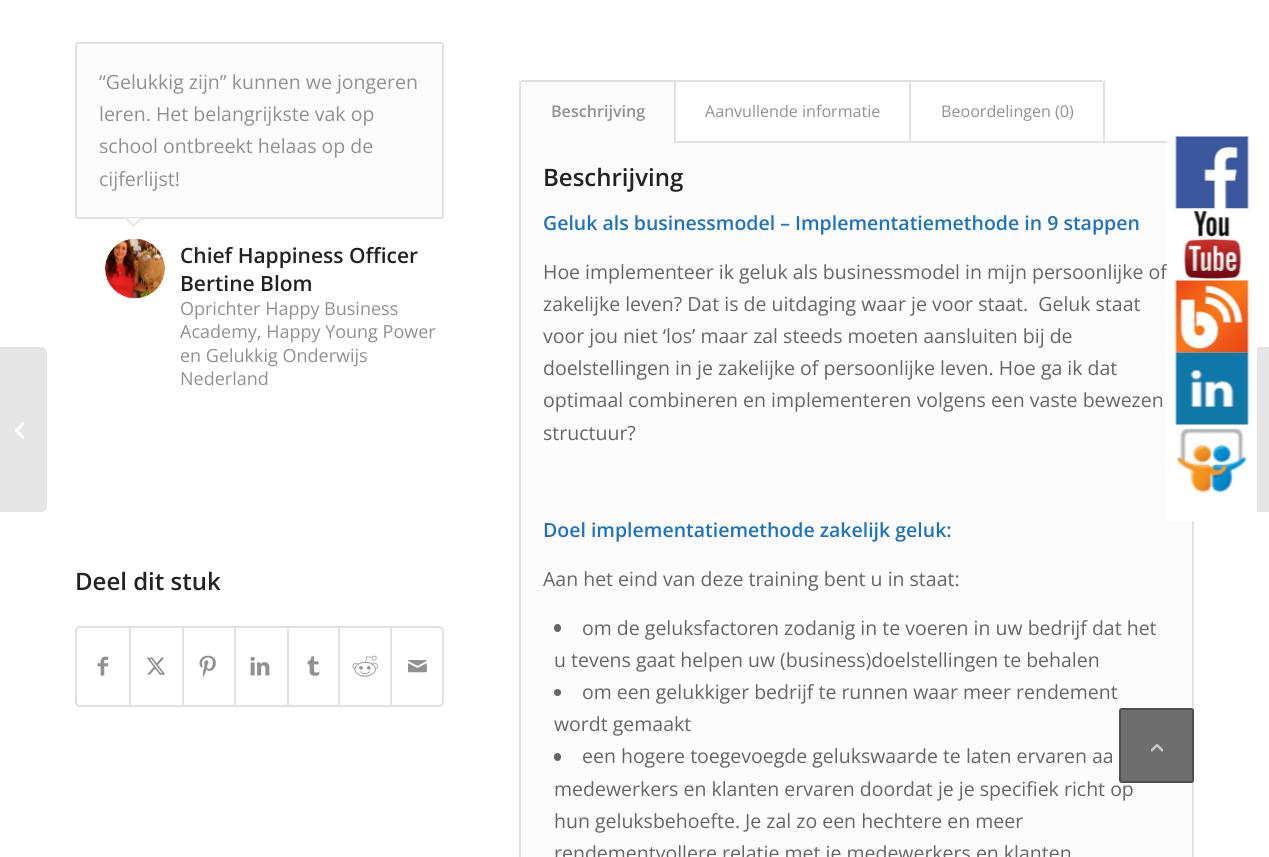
import math
import cairo


def round_path(ctx, x, y, w, h, r):
	ctx.new_sub_path()
	for i, (u, v) in enumerate([(x + w - r, y + h - r), (x + r, y + h - r), (x + r, y + r), (x + w - r, y + r)]):
		ctx.arc(u, v, r, i * math.pi / 2, (i + 1) * math.pi / 2)
	ctx.close_path()

def paste(ctx, path, x, y, w, h):
	ctx.save()
	ctx.set_source_surface(cairo.ImageSurface.create_from_png(path), x, y)
	ctx.rectangle(x, y, w, h)
	ctx.fill()
	ctx.restore()

def draw(ctx):
	ctx.set_source_rgb(1, 1, 1)
	ctx.paint()
	ctx.set_source_rgb(0.902, 0.902, 0.902)
	ctx.new_path()
	ctx.move_to(0, 347)
	ctx.line_to(41, 347)
	ctx.curve_to(44.5, 347, 47, 349.5, 47, 353)
	ctx.line_to(47, 506)
	ctx.curve_to(47, 509.5, 44.5, 512, 41, 512)
	ctx.line_to(0, 512)
	ctx.close_path()
	ctx.fill()
	paste(ctx, 'media/1.png', 15, 422, 9, 17)
	ctx.set_source_rgb(0.988, 0.988, 0.988)
	round_path(ctx, 76, 43, 367, 175, 2)
	ctx.fill_preserve()
	ctx.set_source_rgb(0.882, 0.882, 0.882)
	ctx.stroke()
	ctx.select_font_face('Open Sans')
	ctx.set_font_size(19.5)
	ctx.set_source_rgb(0.569, 0.569, 0.569)
	for x, y, s in [
		(99, 89, '“Gelukkig zijn” kunnen we jongeren'),
		(99, 121, 'leren. Het belangrijkste vak op'),
		(99, 153, 'school ontbreekt helaas op de'),
		(99, 186, 'cijferlijst!'),
	]:
		ctx.move_to(x, y)
		ctx.show_text(s)
	ctx.save()
	ctx.rectangle(126, 218, 15, 15)
	ctx.clip()
	ctx.set_source_rgb(0.988, 0.988, 0.988)
	ctx.new_path()
	ctx.move_to(133.5, 205.5)
	ctx.line_to(144, 216.5)
	ctx.line_to(133.5, 227)
	ctx.line_to(123, 216.5)
	ctx.close_path()
	ctx.fill()
	ctx.new_path()
	ctx.move_to(133.5, 206.5)
	ctx.line_to(143, 216.5)
	ctx.line_to(133.5, 226)
	ctx.line_to(124, 216.5)
	ctx.close_path()
	ctx.set_source_rgb(0.882, 0.882, 0.882)
	ctx.set_line_width(1.5)
	ctx.stroke()
	ctx.restore()
	paste(ctx, 'media/2.png', 105, 238, 60, 61)
	ctx.select_font_face('Open Sans SemiBold')
	ctx.set_font_size(21)
	ctx.set_source_rgb(0.133, 0.133, 0.133)
	ctx.move_to(180, 263)
	ctx.show_text('Chief Happiness Officer')
	ctx.move_to(180, 291)
	ctx.show_text('Bertine Blom')
	ctx.select_font_face('Open Sans')
	ctx.set_font_size(18)
	ctx.set_source_rgb(0.569, 0.569, 0.569)
	for x, y, s in [
		(180, 315, 'Oprichter Happy Business'),
		(180, 338, 'Academy, Happy Young Power'),
		(180, 362, 'en Gelukkig Onderwijs'),
		(180, 385, 'Nederland'),
	]:
		ctx.move_to(x, y)
		ctx.show_text(s)
	ctx.select_font_face('Open Sans SemiBold')
	ctx.set_font_size(24)
	ctx.set_source_rgb(0.133, 0.133, 0.133)
	ctx.move_to(75, 590)
	ctx.show_text('Deel dit stuk')
	round_path(ctx, 76, 627, 367, 79, 4)
	ctx.set_source_rgb(0.882, 0.882, 0.882)
	ctx.stroke()
	paste(ctx, 'media/3.png', 97, 656, 11, 20)
	ctx.rectangle(129, 627, 2, 78)
	ctx.fill()
	paste(ctx, 'media/4.png', 146, 657, 20, 18)
	ctx.rectangle(182, 627, 2, 78)
	ctx.fill()
	paste(ctx, 'media/5.png', 199, 655, 17, 22)
	ctx.rectangle(234, 627, 2, 78)
	ctx.fill()
	paste(ctx, 'media/6.png', 250, 656, 20, 20)
	ctx.rectangle(287, 627, 2, 78)
	ctx.fill()
	paste(ctx, 'media/7.png', 307, 656, 13, 20)
	ctx.rectangle(338, 627, 2, 78)
	ctx.fill()
	paste(ctx, 'media/8.png', 352, 655, 26, 22)
	ctx.rectangle(390, 627, 2, 78)
	ctx.fill()
	paste(ctx, 'media/9.png', 408, 660, 19, 13)
	ctx.set_source_rgb(0.988, 0.988, 0.988)
	ctx.rectangle(520, 142, 673, 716)
	ctx.fill_preserve()
	ctx.set_source_rgb(0.882, 0.882, 0.882)
	ctx.stroke()
	ctx.set_source_rgb(0.988, 0.988, 0.988)
	ctx.rectangle(519, 80, 155, 63)
	ctx.fill()
	ctx.set_source_rgb(0.882, 0.882, 0.882)
	ctx.rectangle(674, 80, 237, 2)
	ctx.rectangle(521, 80, 154, 2)
	ctx.rectangle(674, 80, 2, 63)
	ctx.rectangle(519, 81, 2, 62)
	ctx.fill()
	ctx.set_font_size(16.1)
	ctx.set_source_rgb(0.569, 0.569, 0.569)
	ctx.move_to(551, 117)
	ctx.show_text('Beschrijving')
	ctx.set_source_rgb(0.882, 0.882, 0.882)
	ctx.rectangle(909, 80, 2, 63)
	ctx.fill()
	ctx.select_font_face('Open Sans')
	ctx.set_source_rgb(0.569, 0.569, 0.569)
	ctx.move_to(705, 117)
	ctx.show_text('Aanvullende informatie')
	ctx.set_source_rgb(0.882, 0.882, 0.882)
	ctx.rectangle(909, 80, 194, 2)
	ctx.fill()
	ctx.rectangle(1103, 81, 2, 62)
	ctx.fill()
	ctx.set_source_rgb(0.569, 0.569, 0.569)
	ctx.move_to(941, 117)
	ctx.show_text('Beoordelingen (0)')
	ctx.select_font_face('Open Sans SemiBold')
	ctx.set_font_size(24)
	ctx.set_source_rgb(0.133, 0.133, 0.133)
	ctx.move_to(543, 186)
	ctx.show_text('Beschrijving')
	ctx.set_font_size(19.5)
	ctx.set_source_rgb(0.118, 0.451, 0.745)
	ctx.move_to(543, 230)
	ctx.show_text('Geluk als businessmodel – Implementatiemethode in 9 stappen')
	ctx.select_font_face('Open Sans')
	ctx.set_source_rgb(0.4, 0.4, 0.4)
	for x, y, s in [
		(543, 279, 'Hoe implementeer ik geluk als businessmodel in mijn persoonlijke of'),
		(543, 311, 'zakelijke leven? Dat is de uitdaging waar je voor staat.  Geluk staat'),
		(543, 343, 'voor jou niet ‘los’ maar zal steeds moeten aansluiten bij de'),
		(543, 375, 'doelstellingen in je zakelijke of persoonlijke leven. Hoe ga ik dat'),
		(543, 407, 'optimaal combineren en implementeren volgens een vaste bewezen'),
		(543, 440, 'structuur?'),
	]:
		ctx.move_to(x, y)
		ctx.show_text(s)
	ctx.select_font_face('Open Sans SemiBold')
	ctx.set_source_rgb(0.118, 0.451, 0.745)
	ctx.move_to(543, 537)
	ctx.show_text('Doel implementatiemethode zakelijk geluk:')
	ctx.select_font_face('Open Sans')
	ctx.set_source_rgb(0.4, 0.4, 0.4)
	ctx.move_to(543, 586)
	ctx.show_text('Aan het eind van deze training bent u in staat:')
	round_path(ctx, 554, 624, 7, 8, 3.5)
	ctx.fill()
	ctx.move_to(582, 635)
	ctx.show_text('om de geluksfactoren zodanig in te voeren in uw bedrijf dat het')
	ctx.move_to(554, 667)
	ctx.show_text('u tevens gaat helpen uw (business)doelstellingen te behalen')
	ctx.new_path()
	ctx.arc(557.5, 692.5, 3.5, 0, 2 * math.pi)
	ctx.fill()
	ctx.move_to(582, 699)
	ctx.show_text('om een gelukkiger bedrijf te runnen waar meer rendement')
	ctx.move_to(554, 731)
	ctx.show_text('wordt gemaakt')
	round_path(ctx, 554, 753, 7, 8, 3.5)
	ctx.fill()
	for x, y, s in [
		(582, 763, 'een hogere toegevoegde gelukswaarde te laten ervaren aa'),
		(554, 796, 'medewerkers en klanten ervaren doordat je je specifiek richt op'),
		(554, 828, 'hun geluksbehoefte. Je zal zo een hechtere en meer'),
		(554, 860, 'rendementvollere relatie met je medewerkers en klanten'),
	]:
		ctx.move_to(x, y)
		ctx.show_text(s)
	ctx.set_source_rgb(0.902, 0.902, 0.902)
	ctx.rectangle(1257, 347, 12, 165)
	ctx.fill()
	ctx.set_source_rgb(1, 1, 1)
	ctx.rectangle(1167, 141, 27, 380)
	ctx.fill()
	paste(ctx, 'media/10.png', 1175, 136, 74, 73)
	paste(ctx, 'media/11.png', 1176, 208, 72, 71)
	paste(ctx, 'media/12.png', 1175, 280, 74, 73)
	paste(ctx, 'media/13.png', 1175, 352, 74, 73)
	paste(ctx, 'media/14.png', 1176, 428, 72, 65)
	ctx.set_source_rgba(0.2, 0.2, 0.2, 0.7)
	round_path(ctx, 1119, 708, 75, 75, 3)
	ctx.fill()
	round_path(ctx, 1120, 709, 73, 73, 2)
	ctx.set_source_rgba(0.267, 0.267, 0.267, 0.7)
	ctx.stroke()
	paste(ctx, 'media/15.png', 1151, 744, 12, 8)


surface = cairo.ImageSurface(cairo.FORMAT_RGB24, 1269, 857)
ctx = cairo.Context(surface)
options = cairo.FontOptions()
options.set_hint_metrics(cairo.HINT_METRICS_OFF)
options.set_hint_style(cairo.HINT_STYLE_NONE)
ctx.set_font_options(options)
ctx.set_miter_limit(4)
draw(ctx)
surface.write_to_png('image.png')
